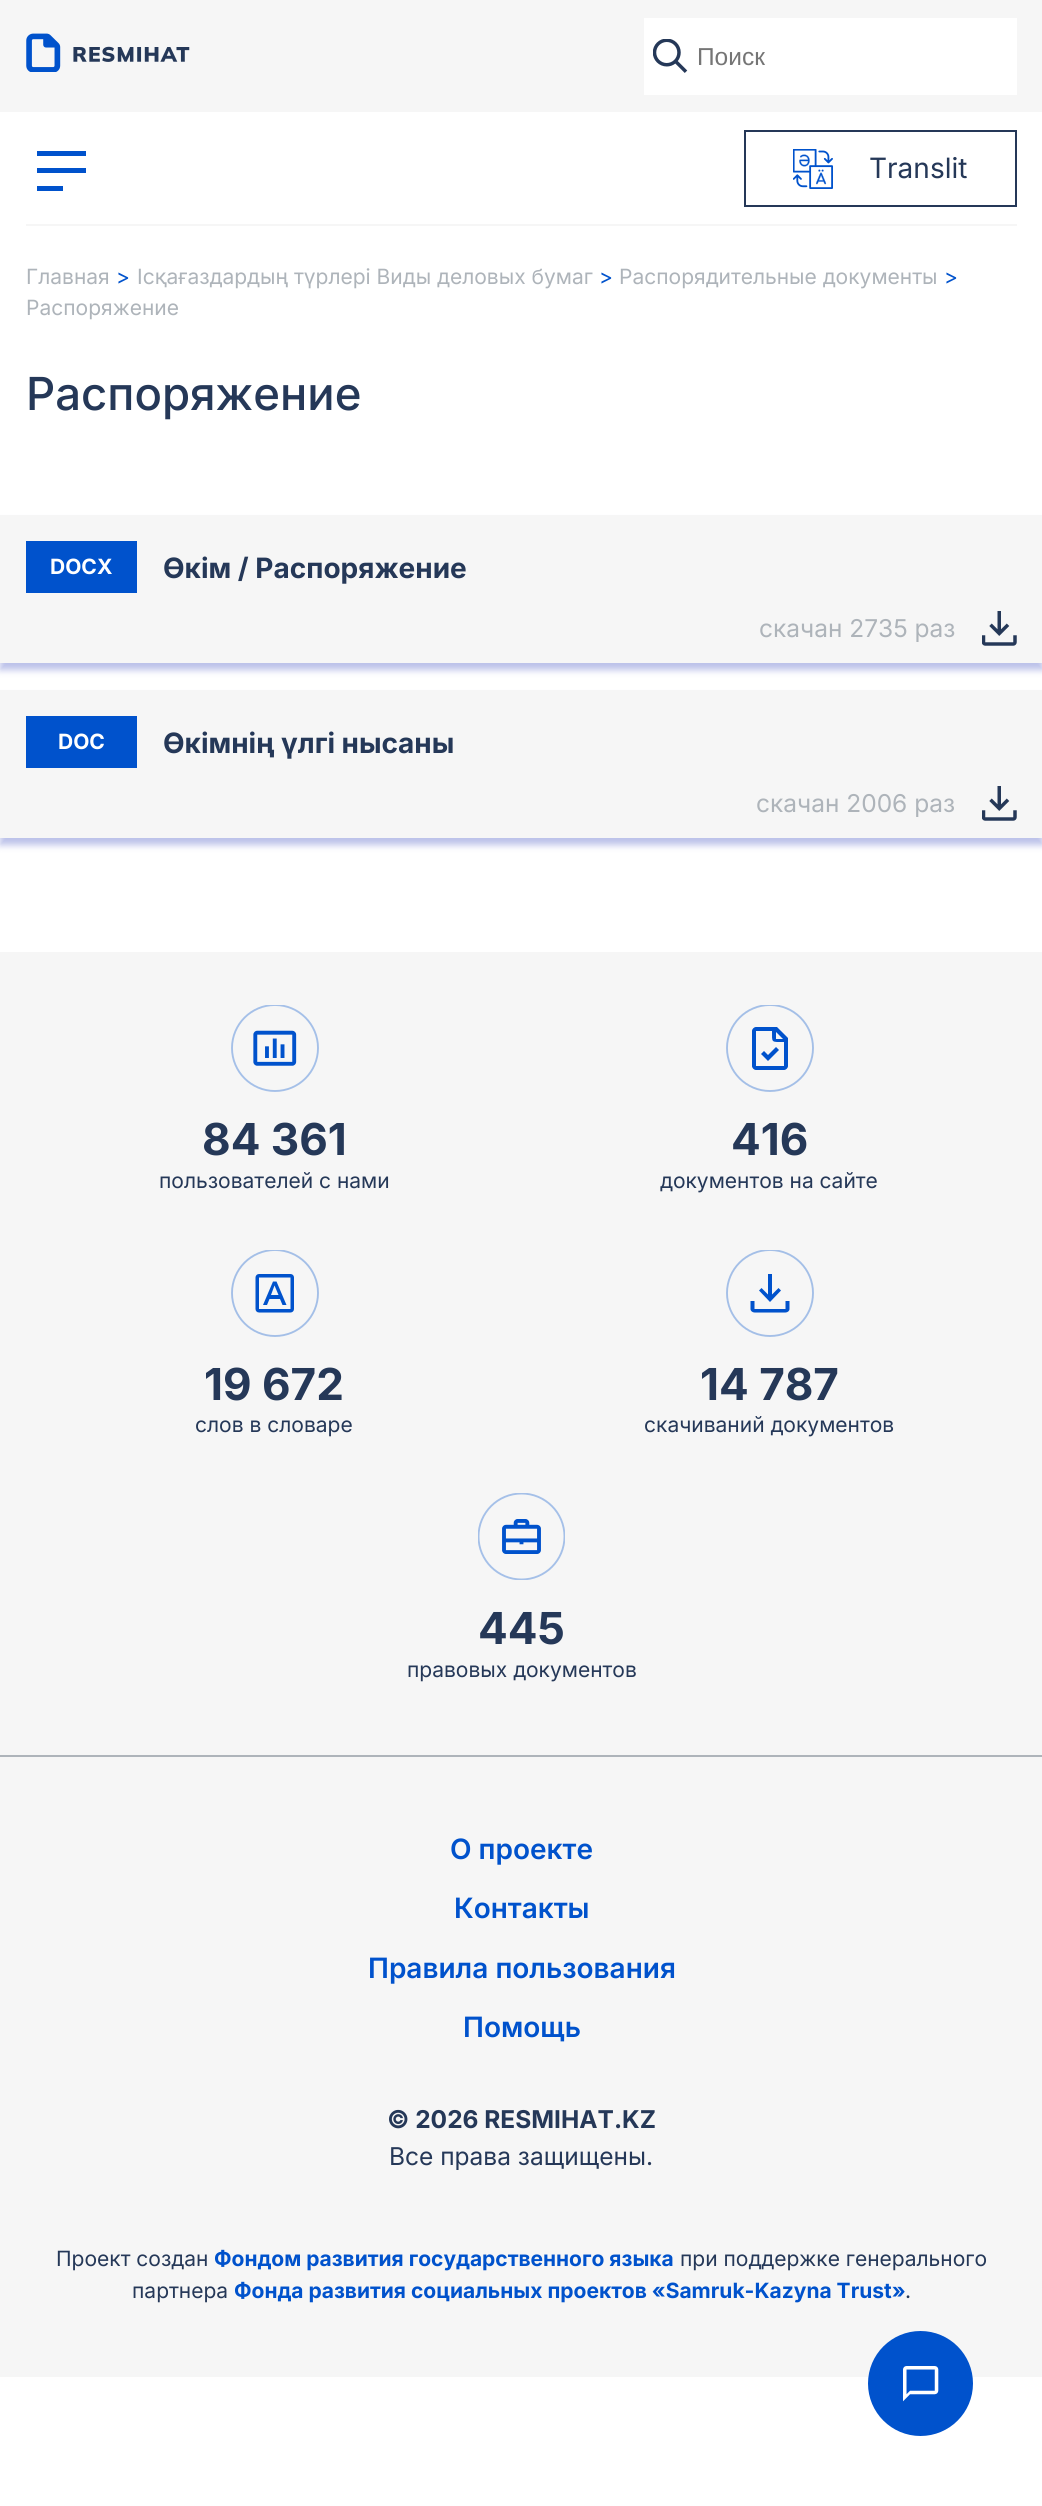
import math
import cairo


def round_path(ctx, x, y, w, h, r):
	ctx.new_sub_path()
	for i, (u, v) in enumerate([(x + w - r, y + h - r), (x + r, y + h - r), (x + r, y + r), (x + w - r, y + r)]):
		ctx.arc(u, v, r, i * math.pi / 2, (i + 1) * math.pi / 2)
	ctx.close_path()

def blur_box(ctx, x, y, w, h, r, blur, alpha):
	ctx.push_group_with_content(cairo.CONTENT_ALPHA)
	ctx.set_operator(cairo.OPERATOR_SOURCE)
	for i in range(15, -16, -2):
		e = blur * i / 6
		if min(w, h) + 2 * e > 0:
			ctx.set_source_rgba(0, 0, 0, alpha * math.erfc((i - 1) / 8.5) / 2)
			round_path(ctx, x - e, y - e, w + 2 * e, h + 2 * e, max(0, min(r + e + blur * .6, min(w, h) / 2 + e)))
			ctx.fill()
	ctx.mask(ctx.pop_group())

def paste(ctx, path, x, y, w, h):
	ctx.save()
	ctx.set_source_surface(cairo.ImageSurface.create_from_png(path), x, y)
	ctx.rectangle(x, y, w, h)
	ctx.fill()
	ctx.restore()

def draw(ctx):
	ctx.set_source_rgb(1, 1, 1)
	ctx.paint()
	ctx.set_source_rgb(0.961, 0.961, 0.961)
	ctx.rectangle(0, 0, 1042, 112)
	ctx.fill()
	paste(ctx, 'media/1.png', 26, 33, 164, 39)
	ctx.set_source_rgb(1, 1, 1)
	ctx.rectangle(644, 18, 373, 77)
	ctx.fill()
	paste(ctx, 'media/2.png', 653, 39, 35, 34)
	ctx.select_font_face('Liberation Sans')
	ctx.set_font_size(24.5)
	ctx.set_source_rgb(0.459, 0.459, 0.459)
	ctx.move_to(697, 65)
	ctx.show_text('Поиск')
	ctx.set_source_rgb(0.961, 0.961, 0.961)
	ctx.rectangle(26, 224, 991, 2)
	ctx.fill()
	ctx.set_source_rgb(0, 0.322, 0.8)
	ctx.rectangle(37, 151, 49, 5)
	ctx.rectangle(37, 168, 49, 5)
	ctx.rectangle(37, 186, 26, 5)
	ctx.fill()
	ctx.rectangle(745, 131, 271, 75)
	ctx.set_source_rgb(0.145, 0.22, 0.345)
	ctx.stroke()
	paste(ctx, 'media/3.png', 793, 149, 40, 40)
	ctx.select_font_face('Inter')
	ctx.set_font_size(28)
	ctx.move_to(869, 178)
	ctx.show_text('Translit')
	ctx.set_font_size(21)
	ctx.set_source_rgb(0.682, 0.706, 0.729)
	ctx.move_to(26, 284)
	ctx.show_text('Главная')
	ctx.set_source_rgb(0, 0.322, 0.8)
	ctx.move_to(116, 284)
	ctx.show_text('>')
	ctx.set_source_rgb(0.682, 0.706, 0.729)
	ctx.move_to(137, 284)
	ctx.show_text('Ісқағаздардың түрлері Виды деловых бумаг')
	ctx.set_source_rgb(0, 0.322, 0.8)
	ctx.move_to(599, 284)
	ctx.show_text('>')
	ctx.set_source_rgb(0.682, 0.706, 0.729)
	ctx.move_to(619, 284)
	ctx.show_text('Распорядительные документы')
	ctx.set_source_rgb(0, 0.322, 0.8)
	ctx.move_to(944, 284)
	ctx.show_text('>')
	ctx.set_source_rgb(0.682, 0.706, 0.729)
	ctx.move_to(26, 315)
	ctx.show_text('Распоряжение')
	ctx.select_font_face('Inter Medium')
	ctx.set_font_size(45.5)
	ctx.set_source_rgb(0.145, 0.22, 0.345)
	ctx.move_to(26, 410)
	ctx.show_text('Распоряжение')
	ctx.set_source_rgb(0.302, 0.357, 0.773)
	blur_box(ctx, 0, 522, 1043, 148, 0, 3.5, 0.38)
	ctx.set_source_rgb(0.961, 0.961, 0.961)
	ctx.rectangle(0, 515, 1042, 148)
	ctx.fill()
	ctx.set_source_rgb(0, 0.322, 0.8)
	ctx.rectangle(26, 541, 111, 52)
	ctx.fill()
	ctx.select_font_face('Inter', cairo.FONT_SLANT_NORMAL, cairo.FONT_WEIGHT_BOLD)
	ctx.set_font_size(21)
	ctx.set_source_rgb(1, 1, 1)
	ctx.move_to(50, 574)
	ctx.show_text('DOCX')
	ctx.set_font_size(28)
	ctx.set_source_rgb(0.145, 0.22, 0.345)
	ctx.move_to(163, 578)
	ctx.show_text('Өкім / Распоряжение')
	ctx.select_font_face('Inter')
	ctx.set_font_size(24.5)
	ctx.set_source_rgb(0.682, 0.706, 0.729)
	ctx.move_to(759, 637)
	ctx.show_text('скачан 2735 раз')
	paste(ctx, 'media/4.png', 982, 611, 35, 35)
	ctx.set_source_rgb(0.302, 0.357, 0.773)
	blur_box(ctx, 0, 697, 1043, 148, 0, 3.5, 0.38)
	ctx.set_source_rgb(0.961, 0.961, 0.961)
	ctx.rectangle(0, 690, 1042, 148)
	ctx.fill()
	ctx.set_source_rgb(0, 0.322, 0.8)
	ctx.rectangle(26, 716, 111, 52)
	ctx.fill()
	ctx.select_font_face('Inter', cairo.FONT_SLANT_NORMAL, cairo.FONT_WEIGHT_BOLD)
	ctx.set_font_size(21)
	ctx.set_source_rgb(1, 1, 1)
	ctx.move_to(58, 749)
	ctx.show_text('DOC')
	ctx.set_font_size(28)
	ctx.set_source_rgb(0.145, 0.22, 0.345)
	ctx.move_to(163, 753)
	ctx.show_text('Өкімнің үлгі нысаны')
	ctx.select_font_face('Inter')
	ctx.set_font_size(24.5)
	ctx.set_source_rgb(0.682, 0.706, 0.729)
	ctx.move_to(756, 812)
	ctx.show_text('скачан 2006 раз')
	paste(ctx, 'media/4.png', 982, 786, 35, 35)
	ctx.set_source_rgb(0.961, 0.961, 0.961)
	ctx.rectangle(0, 952, 1042, 1425)
	ctx.fill()
	ctx.set_source_rgb(0.682, 0.706, 0.729)
	ctx.rectangle(0, 1755, 1042, 2)
	ctx.fill()
	paste(ctx, 'media/5.png', 231, 1005, 88, 87)
	ctx.select_font_face('Inter', cairo.FONT_SLANT_NORMAL, cairo.FONT_WEIGHT_BOLD)
	ctx.set_font_size(44)
	ctx.set_source_rgb(0.145, 0.22, 0.345)
	ctx.move_to(202, 1155)
	ctx.show_text('84 361')
	ctx.select_font_face('Inter')
	ctx.set_font_size(21)
	ctx.move_to(159, 1188)
	ctx.show_text('пользователей с нами')
	ctx.save()
	ctx.rectangle(726, 1005, 88, 87)
	ctx.clip()
	ctx.arc(770, 1048, 43, 0, 2 * math.pi)
	ctx.set_source_rgb(0.643, 0.749, 0.906)
	ctx.set_line_width(1.9)
	ctx.stroke()
	ctx.restore()
	ctx.set_source_rgb(0, 0.322, 0.8)
	ctx.set_fill_rule(cairo.FILL_RULE_EVEN_ODD)
	ctx.new_path()
	ctx.move_to(777, 1027)
	ctx.line_to(756, 1027)
	ctx.curve_to(754, 1027, 752, 1029, 752, 1031)
	ctx.line_to(752, 1066)
	ctx.curve_to(752, 1068, 754, 1070, 756, 1070)
	ctx.line_to(784, 1070)
	ctx.curve_to(786, 1070, 788, 1068, 788, 1066)
	ctx.line_to(788, 1038)
	ctx.close_path()
	ctx.move_to(756, 1031)
	ctx.line_to(772, 1031)
	ctx.curve_to(772, 1043, 771, 1042, 784, 1042)
	ctx.line_to(784, 1066)
	ctx.line_to(756, 1066)
	ctx.close_path()
	ctx.move_to(776, 1039)
	ctx.line_to(776, 1032)
	ctx.line_to(783, 1039)
	ctx.close_path()
	ctx.move_to(776, 1047)
	ctx.line_to(768, 1055)
	ctx.line_to(764, 1051)
	ctx.line_to(761, 1054)
	ctx.line_to(768, 1061)
	ctx.line_to(779, 1050)
	ctx.close_path()
	ctx.fill()
	ctx.select_font_face('Inter', cairo.FONT_SLANT_NORMAL, cairo.FONT_WEIGHT_BOLD)
	ctx.set_font_size(44)
	ctx.set_source_rgb(0.145, 0.22, 0.345)
	ctx.move_to(731, 1155)
	ctx.show_text('416')
	ctx.select_font_face('Inter')
	ctx.set_font_size(21)
	ctx.move_to(660, 1188)
	ctx.show_text('документов на сайте')
	ctx.save()
	ctx.set_fill_rule(cairo.FILL_RULE_WINDING)
	ctx.rectangle(231, 1250, 88, 87)
	ctx.clip()
	ctx.arc(275, 1293, 43, 0, 2 * math.pi)
	ctx.set_source_rgb(0.643, 0.749, 0.906)
	ctx.set_line_width(1.9)
	ctx.stroke()
	ctx.restore()
	ctx.set_source_rgb(0, 0.322, 0.8)
	ctx.new_path()
	ctx.move_to(290.5, 1274)
	ctx.line_to(259, 1274)
	ctx.curve_to(257, 1274, 255.5, 1275.5, 255.5, 1277.5)
	ctx.line_to(255.5, 1309)
	ctx.curve_to(255.5, 1311, 257, 1312.5, 259, 1312.5)
	ctx.line_to(290.5, 1312.5)
	ctx.curve_to(292.5, 1312.5, 294, 1311, 294, 1309)
	ctx.line_to(294, 1277.5)
	ctx.curve_to(294, 1275.5, 292.5, 1274, 290.5, 1274)
	ctx.close_path()
	ctx.move_to(259, 1309)
	ctx.line_to(259, 1277.5)
	ctx.line_to(290.5, 1277.5)
	ctx.line_to(290.5, 1309)
	ctx.close_path()
	ctx.move_to(280, 1299)
	ctx.line_to(269.5, 1299)
	ctx.line_to(267, 1305)
	ctx.line_to(263, 1305)
	ctx.line_to(273, 1281.5)
	ctx.line_to(276.5, 1281.5)
	ctx.line_to(286.5, 1305)
	ctx.line_to(282.5, 1305)
	ctx.close_path()
	ctx.move_to(274.5, 1285.5)
	ctx.line_to(278.5, 1295)
	ctx.line_to(271, 1295)
	ctx.close_path()
	ctx.fill()
	ctx.select_font_face('Inter', cairo.FONT_SLANT_NORMAL, cairo.FONT_WEIGHT_BOLD)
	ctx.set_font_size(44)
	ctx.set_source_rgb(0.145, 0.22, 0.345)
	ctx.move_to(204, 1400)
	ctx.show_text('19 672')
	ctx.select_font_face('Inter')
	ctx.set_font_size(21)
	ctx.move_to(195, 1432)
	ctx.show_text('слов в словаре')
	ctx.save()
	ctx.set_fill_rule(cairo.FILL_RULE_WINDING)
	ctx.rectangle(726, 1250, 88, 87)
	ctx.clip()
	ctx.arc(770, 1293, 43, 0, 2 * math.pi)
	ctx.set_source_rgb(0.643, 0.749, 0.906)
	ctx.set_line_width(1.9)
	ctx.stroke()
	ctx.restore()
	ctx.set_source_rgb(0, 0.322, 0.8)
	ctx.new_path()
	ctx.move_to(778.5, 1288)
	ctx.line_to(772, 1294.5)
	ctx.line_to(772, 1274)
	ctx.line_to(768, 1274)
	ctx.line_to(768, 1294.5)
	ctx.line_to(761.5, 1288)
	ctx.line_to(759, 1290.5)
	ctx.line_to(770, 1302)
	ctx.line_to(781, 1290.5)
	ctx.close_path()
	ctx.move_to(789.5, 1309)
	ctx.line_to(789.5, 1301)
	ctx.line_to(785.5, 1301)
	ctx.line_to(785.5, 1309)
	ctx.line_to(754.5, 1309)
	ctx.line_to(754.5, 1301)
	ctx.line_to(750.5, 1301)
	ctx.line_to(750.5, 1309)
	ctx.curve_to(750.5, 1311, 752.5, 1312.5, 754.5, 1312.5)
	ctx.line_to(785.5, 1312.5)
	ctx.curve_to(787.5, 1312.5, 789.5, 1311, 789.5, 1309)
	ctx.close_path()
	ctx.fill()
	ctx.select_font_face('Inter', cairo.FONT_SLANT_NORMAL, cairo.FONT_WEIGHT_BOLD)
	ctx.set_font_size(44)
	ctx.set_source_rgb(0.145, 0.22, 0.345)
	ctx.move_to(700, 1400)
	ctx.show_text('14 787')
	ctx.select_font_face('Inter')
	ctx.set_font_size(21)
	ctx.move_to(644, 1432)
	ctx.show_text('скачиваний документов')
	paste(ctx, 'media/6.png', 478, 1493, 87, 87)
	ctx.select_font_face('Inter', cairo.FONT_SLANT_NORMAL, cairo.FONT_WEIGHT_BOLD)
	ctx.set_font_size(44)
	ctx.move_to(478, 1644)
	ctx.show_text('445')
	ctx.select_font_face('Inter')
	ctx.set_font_size(21)
	ctx.move_to(407, 1677)
	ctx.show_text('правовых документов')
	ctx.select_font_face('Inter SemiBold')
	ctx.set_font_size(28)
	ctx.set_source_rgb(0, 0.322, 0.8)
	for x, y, s in [
		(450, 1859, 'О проекте'),
		(454, 1918, 'Контакты'),
		(368, 1978, 'Правила пользования'),
		(463, 2037, 'Помощь'),
	]:
		ctx.move_to(x, y)
		ctx.show_text(s)
	ctx.select_font_face('Inter', cairo.FONT_SLANT_NORMAL, cairo.FONT_WEIGHT_BOLD)
	ctx.set_font_size(24.5)
	ctx.set_source_rgb(0.145, 0.22, 0.345)
	ctx.move_to(387, 2128)
	ctx.show_text('© 2026 RESMIHAT.KZ')
	ctx.select_font_face('Inter')
	ctx.move_to(389, 2165)
	ctx.show_text('Все права защищены.')
	ctx.set_font_size(21)
	ctx.move_to(56, 2266)
	ctx.show_text('Проект создан')
	ctx.select_font_face('Inter', cairo.FONT_SLANT_NORMAL, cairo.FONT_WEIGHT_BOLD)
	ctx.set_source_rgb(0, 0.322, 0.8)
	ctx.move_to(214, 2266)
	ctx.show_text('Фондом развития государственного языка')
	ctx.select_font_face('Inter')
	ctx.set_source_rgb(0.145, 0.22, 0.345)
	ctx.move_to(680, 2266)
	ctx.show_text('при поддержке генерального')
	ctx.move_to(132, 2298)
	ctx.show_text('партнера')
	ctx.select_font_face('Inter', cairo.FONT_SLANT_NORMAL, cairo.FONT_WEIGHT_BOLD)
	ctx.set_source_rgb(0, 0.322, 0.8)
	ctx.move_to(234, 2298)
	ctx.show_text('Фонда развития социальных проектов «Samruk-Kazyna Trust»')
	ctx.select_font_face('Inter')
	ctx.set_source_rgb(0.145, 0.22, 0.345)
	ctx.move_to(905, 2298)
	ctx.show_text('.')
	ctx.set_source_rgb(0, 0.322, 0.8)
	ctx.new_path()
	ctx.arc(920.5, 2383.5, 52.5, 0, 2 * math.pi)
	ctx.fill()
	paste(ctx, 'media/7.png', 903, 2366, 36, 36)


surface = cairo.ImageSurface(cairo.FORMAT_RGB24, 1042, 2506)
ctx = cairo.Context(surface)
options = cairo.FontOptions()
options.set_hint_metrics(cairo.HINT_METRICS_OFF)
options.set_hint_style(cairo.HINT_STYLE_NONE)
ctx.set_font_options(options)
ctx.set_miter_limit(4)
draw(ctx)
surface.write_to_png('image.png')
